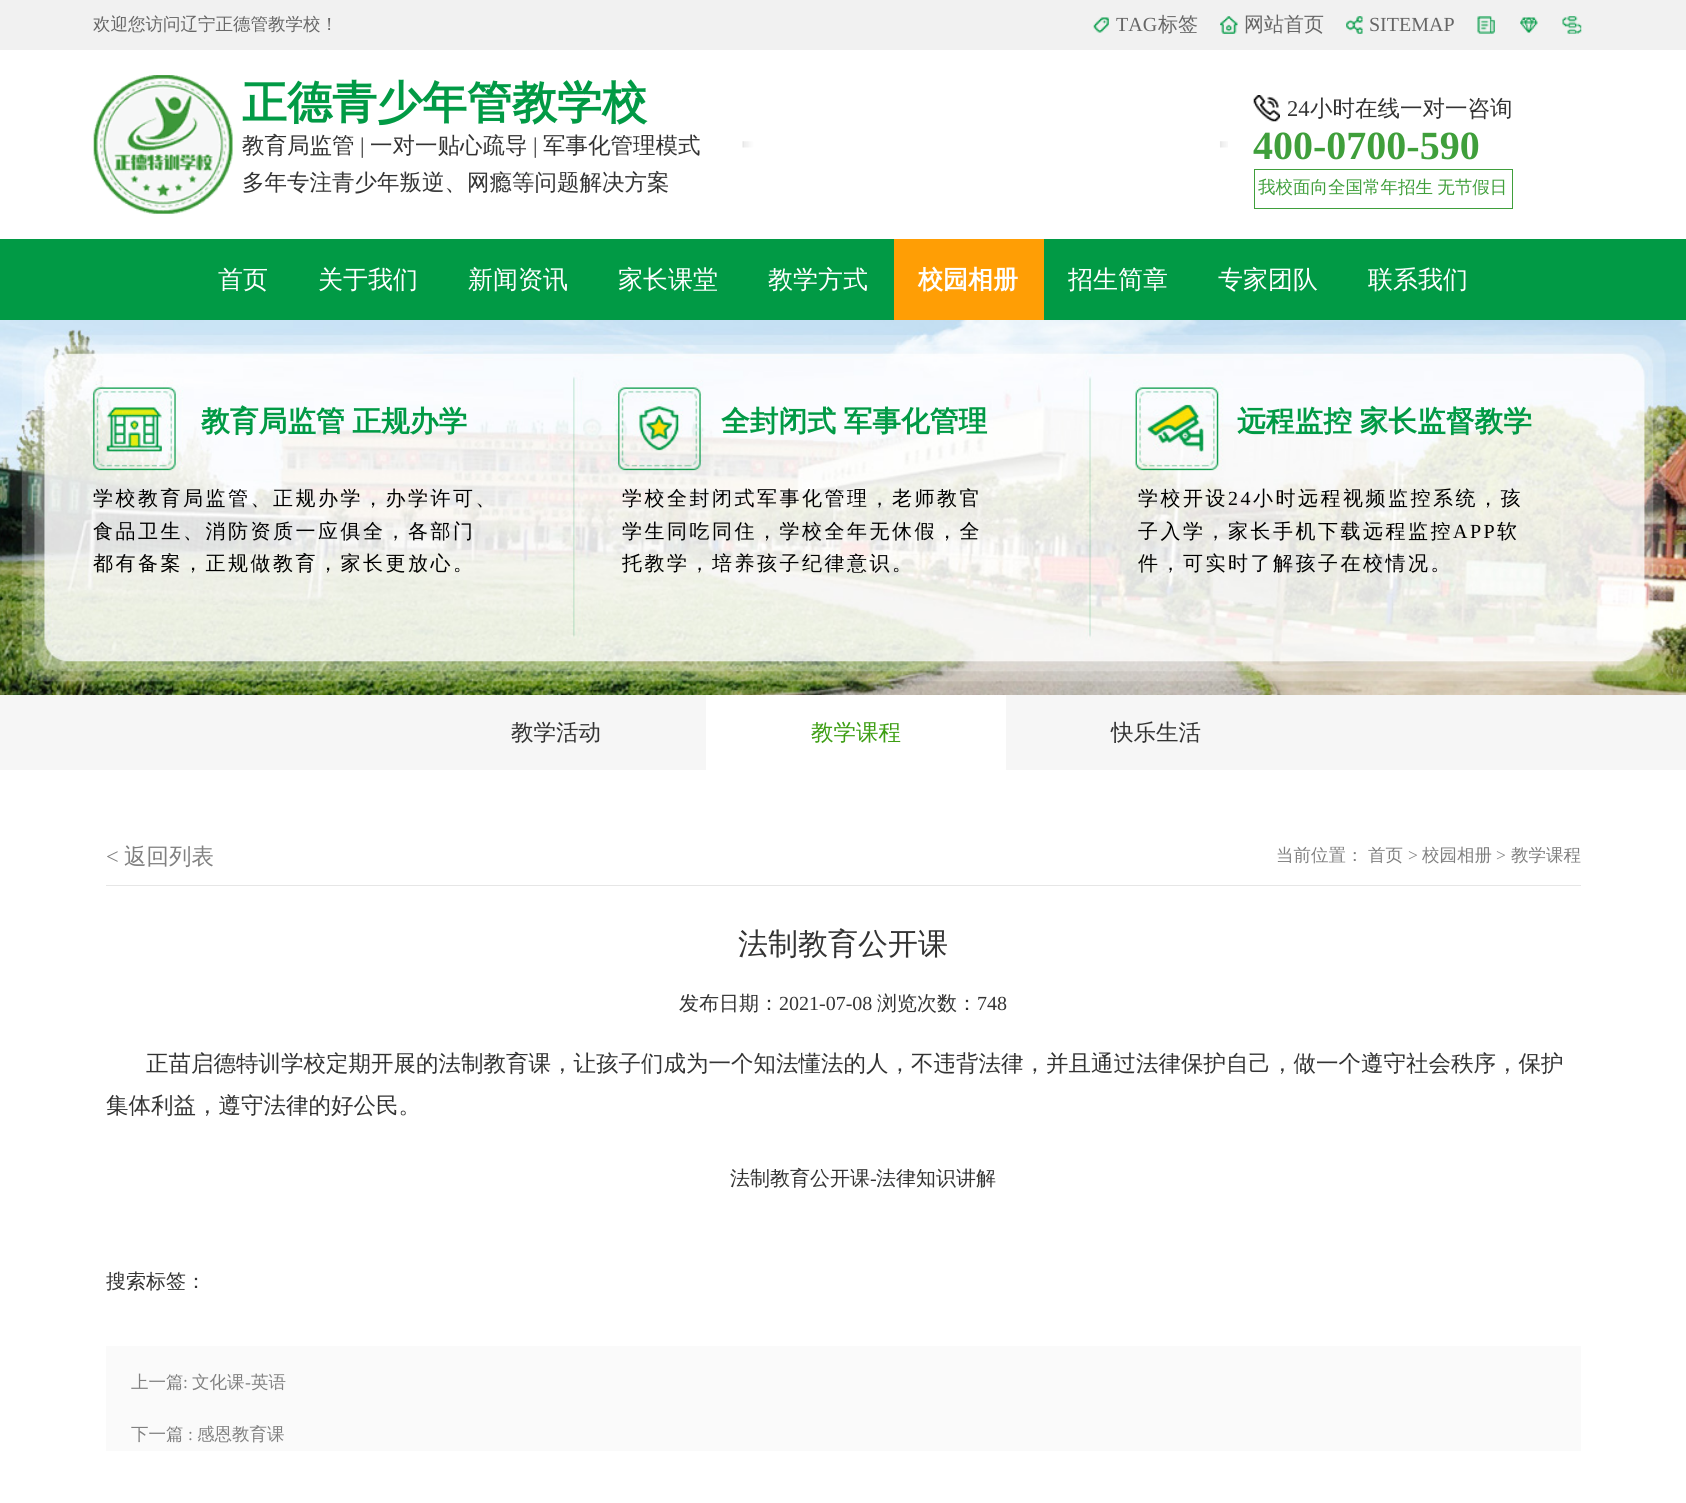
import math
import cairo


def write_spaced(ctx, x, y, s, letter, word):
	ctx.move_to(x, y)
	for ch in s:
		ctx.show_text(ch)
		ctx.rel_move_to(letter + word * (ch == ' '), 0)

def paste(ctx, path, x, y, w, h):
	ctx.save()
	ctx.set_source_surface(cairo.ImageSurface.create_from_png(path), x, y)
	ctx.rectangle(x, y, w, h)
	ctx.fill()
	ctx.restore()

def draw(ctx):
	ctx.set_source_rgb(1, 1, 1)
	ctx.paint()
	ctx.set_source_rgb(0.945, 0.945, 0.945)
	ctx.rectangle(0, 0, 1686, 50)
	ctx.fill()
	ctx.select_font_face('WenQuanYi Zen Hei Medium')
	ctx.set_font_size(17.5)
	ctx.set_source_rgb(0.4, 0.4, 0.4)
	ctx.move_to(93, 30)
	ctx.show_text('欢迎您访问辽宁正德管教学校！')
	paste(ctx, 'media/1.png', 1093, 17, 16, 16)
	ctx.select_font_face('Liberation Serif')
	ctx.set_font_size(20)
	ctx.move_to(1116, 31)
	ctx.show_text('TAG')
	ctx.select_font_face('WenQuanYi Zen Hei Medium')
	ctx.move_to(1158, 31)
	ctx.show_text('标签')
	paste(ctx, 'media/2.png', 1220, 16, 18, 18)
	ctx.move_to(1244, 31)
	ctx.show_text('网站首页')
	paste(ctx, 'media/3.png', 1346, 16, 17, 18)
	ctx.select_font_face('Liberation Serif')
	ctx.move_to(1369, 31)
	ctx.show_text('SITEMAP')
	paste(ctx, 'media/4.png', 1477, 16, 18, 18)
	paste(ctx, 'media/5.png', 1520, 17, 18, 16)
	paste(ctx, 'media/6.png', 1562, 16, 20, 18)
	paste(ctx, 'media/7.png', 93, 75, 140, 139)
	ctx.select_font_face('WenQuanYi Zen Hei', cairo.FONT_SLANT_NORMAL, cairo.FONT_WEIGHT_BOLD)
	ctx.set_font_size(45)
	ctx.set_source_rgb(0.004, 0.604, 0.271)
	ctx.move_to(242, 118)
	ctx.show_text('正德青少年管教学校')
	ctx.select_font_face('WenQuanYi Zen Hei Medium')
	ctx.set_font_size(22.5)
	ctx.set_source_rgb(0.2, 0.2, 0.2)
	ctx.move_to(242, 153)
	ctx.show_text('教育局监管')
	ctx.select_font_face('Liberation Serif')
	ctx.move_to(360, 153)
	ctx.show_text('|')
	ctx.select_font_face('WenQuanYi Zen Hei Medium')
	ctx.move_to(370, 153)
	ctx.show_text('一对一贴心疏导')
	ctx.select_font_face('Liberation Serif')
	ctx.move_to(533, 153)
	ctx.show_text('|')
	ctx.select_font_face('WenQuanYi Zen Hei Medium')
	ctx.move_to(543, 153)
	ctx.show_text('军事化管理模式')
	ctx.move_to(242, 190)
	ctx.show_text('多年专注青少年叛逆、网瘾等问题解决方案')
	paste(ctx, 'media/8.png', 742, 141, 486, 7)
	paste(ctx, 'media/9.png', 1253, 95, 27, 27)
	ctx.select_font_face('Liberation Serif')
	ctx.move_to(1287, 116)
	ctx.show_text('24')
	ctx.select_font_face('WenQuanYi Zen Hei Medium')
	ctx.move_to(1310, 116)
	ctx.show_text('小时在线一对一咨询')
	ctx.select_font_face('Liberation Serif', cairo.FONT_SLANT_NORMAL, cairo.FONT_WEIGHT_BOLD)
	ctx.set_font_size(40)
	ctx.set_source_rgb(0.247, 0.624, 0.231)
	ctx.move_to(1253, 159)
	ctx.show_text('400-0700-590')
	ctx.rectangle(1254.5, 169.5, 258, 39)
	ctx.set_line_width(1)
	ctx.stroke()
	ctx.select_font_face('WenQuanYi Zen Hei Medium')
	ctx.set_font_size(17.5)
	write_spaced(ctx, 1258, 193, '我校面向全国常年招生 无节假日', 0, -1)
	ctx.set_source_rgb(0.004, 0.604, 0.271)
	ctx.rectangle(0, 239, 1686, 81)
	ctx.fill()
	ctx.set_font_size(25)
	ctx.set_source_rgb(1, 1, 1)
	for x, y, s in [
		(218, 288, '首页'),
		(318, 288, '关于我们'),
		(468, 288, '新闻资讯'),
		(618, 288, '家长课堂'),
		(768, 288, '教学方式'),
	]:
		ctx.move_to(x, y)
		ctx.show_text(s)
	ctx.set_source_rgb(1, 0.62, 0.02)
	ctx.rectangle(894, 239, 150, 81)
	ctx.fill()
	ctx.select_font_face('WenQuanYi Zen Hei', cairo.FONT_SLANT_NORMAL, cairo.FONT_WEIGHT_BOLD)
	ctx.set_source_rgb(1, 1, 1)
	ctx.move_to(918, 288)
	ctx.show_text('校园相册')
	ctx.select_font_face('WenQuanYi Zen Hei Medium')
	for x, y, s in [
		(1068, 288, '招生简章'),
		(1218, 288, '专家团队'),
		(1368, 288, '联系我们'),
	]:
		ctx.move_to(x, y)
		ctx.show_text(s)
	paste(ctx, 'media/10.png', 0, 320, 1686, 375)
	ctx.select_font_face('WenQuanYi Zen Hei', cairo.FONT_SLANT_NORMAL, cairo.FONT_WEIGHT_BOLD)
	ctx.set_font_size(28.75)
	ctx.set_source_rgb(0.004, 0.604, 0.271)
	for x, y, s in [
		(201, 431, '教育局监管 正规办学'),
		(721, 431, '全封闭式 军事化管理'),
		(1237, 431, '远程监控 家长监督教学'),
	]:
		write_spaced(ctx, x, y, s, 0, -1)
	ctx.select_font_face('WenQuanYi Zen Hei Medium')
	ctx.set_font_size(20)
	ctx.set_source_rgb(0, 0, 0)
	for x, y, s in [
		(93, 505, '学校教育局监管、正规办学，办学许可、'),
		(93, 538, '食品卫生、消防资质一应俱全，各部门'),
		(93, 570, '都有备案，正规做教育，家长更放心。'),
		(622, 505, '学校全封闭式军事化管理，老师教官'),
		(622, 538, '学生同吃同住，学校全年无休假，全'),
		(622, 570, '托教学，培养孩子纪律意识。'),
		(1138, 505, '学校开设'),
	]:
		write_spaced(ctx, x, y, s, 2.5, 0)
	ctx.select_font_face('Liberation Serif')
	write_spaced(ctx, 1228, 505, '24', 2.5, 0)
	ctx.select_font_face('WenQuanYi Zen Hei Medium')
	write_spaced(ctx, 1253, 505, '小时远程视频监控系统，孩', 2.5, 0)
	write_spaced(ctx, 1138, 538, '子入学，家长手机下载远程监控', 2.5, 0)
	ctx.select_font_face('Liberation Serif')
	write_spaced(ctx, 1453, 538, 'APP', 2.5, 0)
	ctx.select_font_face('WenQuanYi Zen Hei Medium')
	write_spaced(ctx, 1497, 538, '软', 2.5, 0)
	write_spaced(ctx, 1138, 570, '件，可实时了解孩子在校情况。', 2.5, 0)
	ctx.set_source_rgb(0.961, 0.961, 0.961)
	ctx.rectangle(0, 695, 1686, 75)
	ctx.fill()
	ctx.set_font_size(22.5)
	ctx.set_source_rgb(0.2, 0.2, 0.2)
	ctx.move_to(511, 740)
	ctx.show_text('教学活动')
	ctx.set_source_rgb(1, 1, 1)
	ctx.rectangle(706, 695, 300, 75)
	ctx.fill()
	ctx.set_source_rgb(0.239, 0.62, 0.075)
	ctx.move_to(811, 740)
	ctx.show_text('教学课程')
	ctx.set_source_rgb(0.2, 0.2, 0.2)
	ctx.move_to(1111, 740)
	ctx.show_text('快乐生活')
	ctx.set_source_rgb(0.902, 0.902, 0.902)
	ctx.rectangle(106, 885, 1475, 1)
	ctx.fill()
	ctx.select_font_face('Liberation Serif')
	ctx.set_source_rgb(0.502, 0.502, 0.502)
	ctx.move_to(106, 864)
	ctx.show_text('<')
	ctx.select_font_face('WenQuanYi Zen Hei Medium')
	ctx.move_to(124, 864)
	ctx.show_text('返回列表')
	ctx.set_font_size(17.5)
	ctx.move_to(1276, 861)
	ctx.show_text('当前位置：')
	ctx.move_to(1368, 861)
	ctx.show_text('首页')
	ctx.select_font_face('Liberation Serif')
	ctx.move_to(1408, 861)
	ctx.show_text('>')
	ctx.select_font_face('WenQuanYi Zen Hei Medium')
	ctx.move_to(1422, 861)
	ctx.show_text('校园相册')
	ctx.select_font_face('Liberation Serif')
	ctx.move_to(1496, 861)
	ctx.show_text('>')
	ctx.select_font_face('WenQuanYi Zen Hei Medium')
	ctx.move_to(1511, 861)
	ctx.show_text('教学课程')
	ctx.set_font_size(30)
	ctx.set_source_rgb(0.2, 0.2, 0.2)
	ctx.move_to(738, 954)
	ctx.show_text('法制教育公开课')
	ctx.set_font_size(20)
	ctx.move_to(679, 1010)
	ctx.show_text('发布日期：')
	ctx.select_font_face('Liberation Serif')
	ctx.move_to(779, 1010)
	ctx.show_text('2021-07-08')
	ctx.select_font_face('WenQuanYi Zen Hei Medium')
	ctx.move_to(877, 1010)
	ctx.show_text('浏览次数：')
	ctx.select_font_face('Liberation Serif')
	ctx.move_to(977, 1010)
	ctx.show_text('748')
	ctx.select_font_face('WenQuanYi Zen Hei Medium')
	ctx.set_font_size(22.5)
	ctx.move_to(146, 1071)
	ctx.show_text('正苗启德特训学校定期开展的法制教育课，让孩子们成为一个知法懂法的人，不违背法律，并且通过法律保护自己，做一个遵守社会秩序，保护')
	ctx.move_to(106, 1113)
	ctx.show_text('集体利益，遵守法律的好公民。')
	ctx.set_font_size(20)
	ctx.move_to(730, 1185)
	ctx.show_text('法制教育公开课')
	ctx.select_font_face('Liberation Serif')
	ctx.move_to(870, 1185)
	ctx.show_text('-')
	ctx.select_font_face('WenQuanYi Zen Hei Medium')
	ctx.move_to(876, 1185)
	ctx.show_text('法律知识讲解')
	ctx.move_to(106, 1288)
	ctx.show_text('搜索标签：')
	ctx.set_source_rgb(0.98, 0.98, 0.98)
	ctx.rectangle(106, 1346, 1475, 105)
	ctx.fill()
	ctx.set_font_size(17.5)
	ctx.set_source_rgb(0.502, 0.502, 0.502)
	ctx.move_to(131, 1388)
	ctx.show_text('上一篇')
	ctx.select_font_face('Liberation Serif')
	ctx.move_to(183, 1388)
	ctx.show_text(':')
	ctx.select_font_face('WenQuanYi Zen Hei Medium')
	ctx.move_to(192, 1388)
	ctx.show_text('文化课')
	ctx.select_font_face('Liberation Serif')
	ctx.move_to(245, 1388)
	ctx.show_text('-')
	ctx.select_font_face('WenQuanYi Zen Hei Medium')
	ctx.move_to(251, 1388)
	ctx.show_text('英语')
	ctx.move_to(131, 1440)
	ctx.show_text('下一篇')
	ctx.select_font_face('Liberation Serif')
	ctx.move_to(188, 1440)
	ctx.show_text(':')
	ctx.select_font_face('WenQuanYi Zen Hei Medium')
	ctx.move_to(197, 1440)
	ctx.show_text('感恩教育课')


surface = cairo.ImageSurface(cairo.FORMAT_RGB24, 1686, 1503)
ctx = cairo.Context(surface)
options = cairo.FontOptions()
options.set_hint_metrics(cairo.HINT_METRICS_OFF)
options.set_hint_style(cairo.HINT_STYLE_NONE)
ctx.set_font_options(options)
ctx.set_miter_limit(4)
draw(ctx)
surface.write_to_png('image.png')
